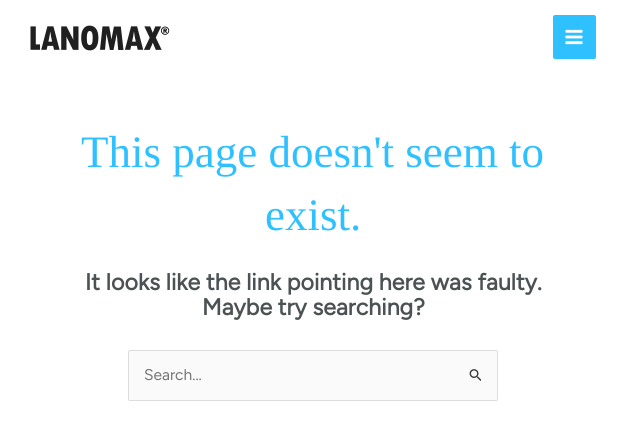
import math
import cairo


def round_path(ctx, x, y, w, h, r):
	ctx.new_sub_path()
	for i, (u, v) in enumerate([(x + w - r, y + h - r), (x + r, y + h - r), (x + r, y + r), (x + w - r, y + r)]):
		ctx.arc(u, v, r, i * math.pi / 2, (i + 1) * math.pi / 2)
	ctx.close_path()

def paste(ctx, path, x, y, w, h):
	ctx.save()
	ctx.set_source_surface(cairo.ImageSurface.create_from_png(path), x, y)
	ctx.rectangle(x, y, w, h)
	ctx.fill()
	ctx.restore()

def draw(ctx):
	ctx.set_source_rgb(1, 1, 1)
	ctx.paint()
	paste(ctx, 'media/1.png', 30, 25, 140, 26)
	ctx.set_source_rgb(0.184, 0.757, 1)
	round_path(ctx, 553, 15, 43, 44, 2)
	ctx.fill()
	paste(ctx, 'media/2.png', 565, 29, 18, 16)
	ctx.select_font_face('Liberation Serif')
	ctx.set_font_size(45)
	ctx.move_to(81, 167)
	ctx.show_text('This page doesn\'t seem to')
	ctx.move_to(265, 230)
	ctx.show_text('exist.')
	ctx.select_font_face('Figtree', cairo.FONT_SLANT_NORMAL, cairo.FONT_WEIGHT_BOLD)
	ctx.set_font_size(23.25)
	ctx.set_source_rgb(0.298, 0.322, 0.325)
	ctx.move_to(85, 290)
	ctx.show_text('It looks like the link pointing here was faulty.')
	ctx.move_to(202, 315)
	ctx.show_text('Maybe try searching?')
	ctx.set_source_rgb(0.98, 0.98, 0.98)
	round_path(ctx, 128.5, 350.5, 369, 50, 1.5)
	ctx.fill_preserve()
	ctx.set_source_rgb(0.867, 0.867, 0.867)
	ctx.set_line_width(1)
	ctx.stroke()
	ctx.select_font_face('Figtree Light')
	ctx.set_font_size(15.5)
	ctx.set_source_rgb(0.459, 0.459, 0.459)
	ctx.move_to(144, 380)
	ctx.show_text('Search...')
	paste(ctx, 'media/3.png', 469, 369, 12, 12)


surface = cairo.ImageSurface(cairo.FORMAT_RGB24, 626, 442)
ctx = cairo.Context(surface)
options = cairo.FontOptions()
options.set_hint_metrics(cairo.HINT_METRICS_OFF)
options.set_hint_style(cairo.HINT_STYLE_NONE)
ctx.set_font_options(options)
ctx.set_miter_limit(4)
draw(ctx)
surface.write_to_png('image.png')
